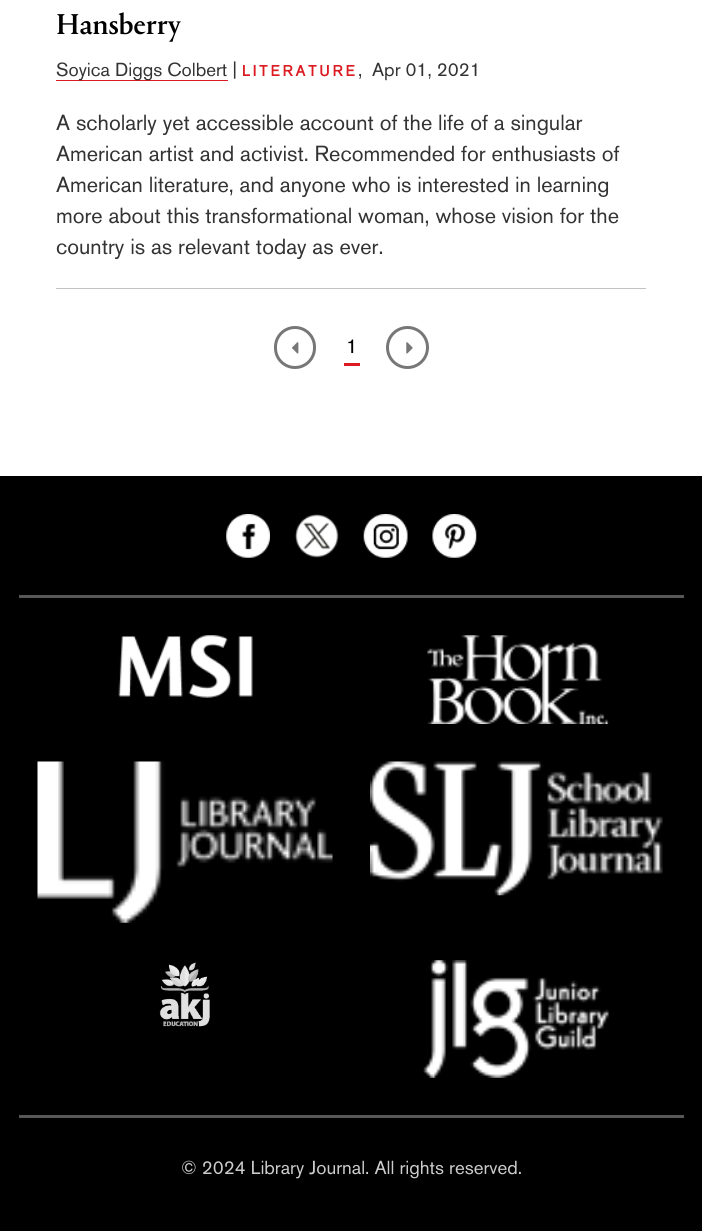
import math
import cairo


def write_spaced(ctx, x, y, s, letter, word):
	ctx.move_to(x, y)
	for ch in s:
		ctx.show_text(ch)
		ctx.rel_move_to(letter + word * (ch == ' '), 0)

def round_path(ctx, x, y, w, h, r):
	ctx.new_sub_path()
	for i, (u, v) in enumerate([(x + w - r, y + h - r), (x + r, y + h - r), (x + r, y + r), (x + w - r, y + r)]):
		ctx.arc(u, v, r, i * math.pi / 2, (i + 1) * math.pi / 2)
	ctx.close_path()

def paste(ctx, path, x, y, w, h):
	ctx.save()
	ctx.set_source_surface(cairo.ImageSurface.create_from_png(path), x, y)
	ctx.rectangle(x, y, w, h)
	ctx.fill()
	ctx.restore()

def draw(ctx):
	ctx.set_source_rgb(1, 1, 1)
	ctx.paint()
	ctx.select_font_face('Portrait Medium')
	ctx.set_font_size(30)
	ctx.set_source_rgb(0, 0, 0)
	ctx.move_to(56, 34)
	ctx.show_text('Hansberry')
	ctx.set_source_rgb(0.859, 0.102, 0.129)
	ctx.rectangle(56, 80, 172, 1)
	ctx.fill()
	ctx.select_font_face('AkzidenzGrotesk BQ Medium')
	ctx.set_font_size(18.75)
	ctx.set_source_rgb(0.2, 0.2, 0.2)
	ctx.move_to(56, 76)
	ctx.show_text('Soyica Diggs Colbert |')
	ctx.select_font_face('AkzidenzGrotesk BQ', cairo.FONT_SLANT_NORMAL, cairo.FONT_WEIGHT_BOLD)
	ctx.set_font_size(15)
	ctx.set_source_rgb(0.859, 0.102, 0.129)
	write_spaced(ctx, 242, 76, 'LITERATURE', 3, 0)
	ctx.select_font_face('AkzidenzGrotesk BQ Medium')
	ctx.set_font_size(18.75)
	ctx.set_source_rgb(0.2, 0.2, 0.2)
	ctx.move_to(358, 76)
	ctx.show_text(',')
	ctx.move_to(372, 76)
	ctx.show_text('Apr 01, 2021')
	ctx.set_font_size(21.7)
	for x, y, s in [
		(56, 130, 'A scholarly yet accessible account of the life of a singular'),
		(56, 161, 'American artist and activist. Recommended for enthusiasts of'),
		(56, 192, 'American literature, and anyone who is interested in learning'),
		(56, 223, 'more about this transformational woman, whose vision for the'),
		(56, 254, 'country is as relevant today as ever.'),
	]:
		ctx.move_to(x, y)
		ctx.show_text(s)
	ctx.set_source_rgb(0.773, 0.761, 0.761)
	ctx.rectangle(56, 288, 590, 1)
	ctx.fill()
	round_path(ctx, 275.5, 327.5, 39, 40, 19.5)
	ctx.set_source_rgb(0.467, 0.467, 0.467)
	ctx.set_line_width(3)
	ctx.stroke()
	paste(ctx, 'media/1.png', 292, 342, 7, 12)
	ctx.set_source_rgb(0.859, 0.102, 0.129)
	ctx.rectangle(344, 363, 16, 3)
	ctx.fill()
	ctx.set_font_size(20)
	ctx.set_source_rgb(0, 0, 0)
	ctx.move_to(346, 353)
	ctx.show_text('1')
	ctx.new_path()
	ctx.arc(407.5, 347.5, 20, 0, 2 * math.pi)
	ctx.set_source_rgb(0.467, 0.467, 0.467)
	ctx.stroke()
	paste(ctx, 'media/2.png', 406, 342, 7, 12)
	ctx.set_source_rgb(0, 0, 0)
	ctx.rectangle(0, 476, 702, 755)
	ctx.fill()
	paste(ctx, 'media/3.png', 226, 514, 44, 44)
	paste(ctx, 'media/4.png', 295, 514, 44, 44)
	paste(ctx, 'media/5.png', 363, 514, 45, 44)
	paste(ctx, 'media/6.png', 432, 514, 45, 44)
	ctx.set_source_rgb(0.341, 0.341, 0.341)
	ctx.rectangle(19, 595, 665, 3)
	ctx.fill()
	paste(ctx, 'media/7.png', 118, 635, 135, 63)
	paste(ctx, 'media/8.png', 427, 635, 182, 89)
	paste(ctx, 'media/9.png', 37, 761, 296, 162)
	paste(ctx, 'media/10.png', 370, 761, 293, 135)
	paste(ctx, 'media/11.png', 159, 962, 51, 65)
	paste(ctx, 'media/12.png', 423, 960, 186, 118)
	ctx.rectangle(19, 1115, 665, 3)
	ctx.fill()
	ctx.set_font_size(18.75)
	ctx.set_source_rgb(0.8, 0.8, 0.8)
	ctx.move_to(181, 1174)
	ctx.show_text('© 2024 Library Journal. All rights reserved.')


surface = cairo.ImageSurface(cairo.FORMAT_RGB24, 702, 1231)
ctx = cairo.Context(surface)
options = cairo.FontOptions()
options.set_hint_metrics(cairo.HINT_METRICS_OFF)
options.set_hint_style(cairo.HINT_STYLE_NONE)
ctx.set_font_options(options)
ctx.set_miter_limit(4)
draw(ctx)
surface.write_to_png('image.png')
